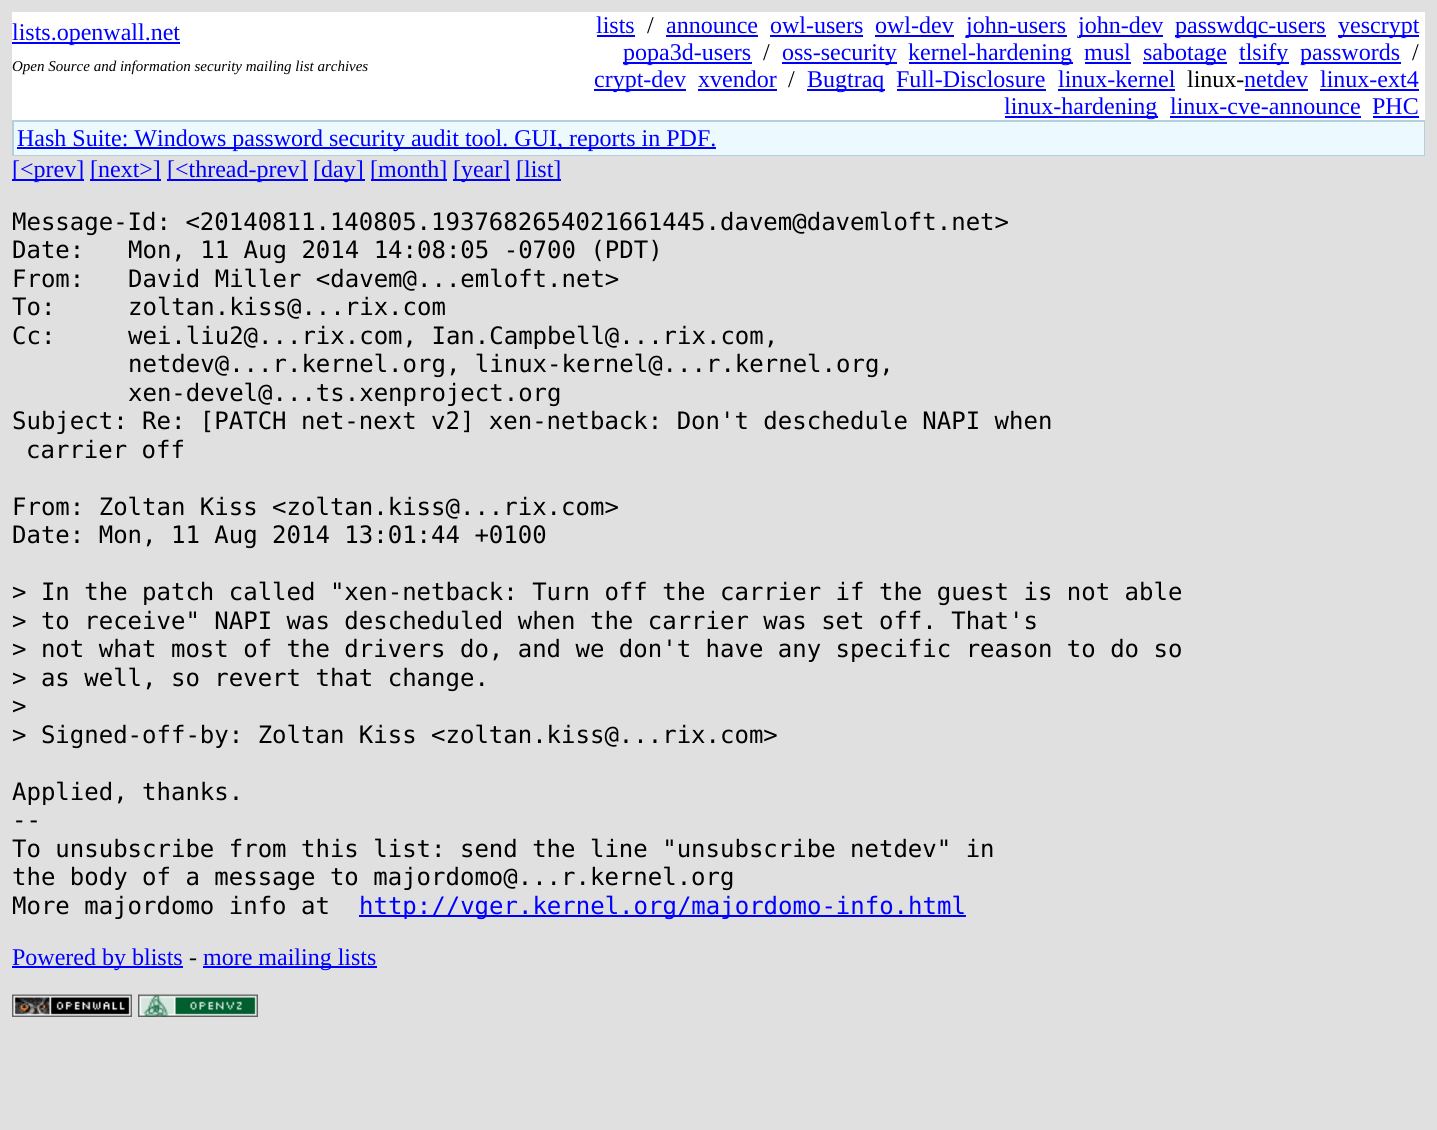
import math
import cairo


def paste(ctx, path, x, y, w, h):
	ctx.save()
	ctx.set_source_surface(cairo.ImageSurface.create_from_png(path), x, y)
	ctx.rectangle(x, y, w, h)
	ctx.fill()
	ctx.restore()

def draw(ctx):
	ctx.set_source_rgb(0.878, 0.878, 0.878)
	ctx.paint()
	ctx.set_source_rgb(1, 1, 1)
	ctx.rectangle(12, 12, 1413, 108)
	ctx.fill()
	ctx.set_source_rgb(0, 0, 1)
	ctx.rectangle(12, 42, 168, 2)
	ctx.fill()
	ctx.select_font_face('Liberation Serif')
	ctx.set_font_size(24)
	ctx.move_to(12, 40)
	ctx.show_text('lists.openwall.net')
	ctx.move_to(596, 33)
	ctx.show_text('lists')
	ctx.rectangle(597, 35, 38, 2)
	ctx.fill()
	ctx.set_source_rgb(0, 0, 0)
	ctx.move_to(647, 33)
	ctx.show_text('/')
	ctx.set_source_rgb(0, 0, 1)
	ctx.move_to(666, 33)
	ctx.show_text('announce')
	ctx.rectangle(666, 35, 92, 2)
	ctx.fill()
	ctx.move_to(770, 33)
	ctx.show_text('owl-users')
	ctx.rectangle(770, 35, 93, 2)
	ctx.fill()
	ctx.move_to(875, 33)
	ctx.show_text('owl-dev')
	ctx.rectangle(875, 35, 79, 2)
	ctx.fill()
	ctx.rectangle(966, 35, 101, 2)
	ctx.fill()
	ctx.move_to(966, 33)
	ctx.show_text('john-users')
	ctx.rectangle(1079, 35, 84, 2)
	ctx.fill()
	ctx.move_to(1078, 33)
	ctx.show_text('john-dev')
	ctx.rectangle(1175, 35, 151, 2)
	ctx.fill()
	ctx.move_to(1175, 33)
	ctx.show_text('passwdqc-users')
	ctx.rectangle(1338, 35, 81, 2)
	ctx.fill()
	ctx.move_to(1338, 33)
	ctx.show_text('yescrypt')
	ctx.rectangle(623, 62, 129, 2)
	ctx.fill()
	ctx.move_to(623, 60)
	ctx.show_text('popa3d-users')
	ctx.set_source_rgb(0, 0, 0)
	ctx.move_to(763, 60)
	ctx.show_text('/')
	ctx.set_source_rgb(0, 0, 1)
	ctx.rectangle(782, 62, 115, 2)
	ctx.fill()
	ctx.move_to(782, 60)
	ctx.show_text('oss-security')
	ctx.rectangle(909, 62, 164, 2)
	ctx.fill()
	ctx.move_to(908, 60)
	ctx.show_text('kernel-hardening')
	ctx.move_to(1084, 60)
	ctx.show_text('musl')
	ctx.rectangle(1085, 62, 46, 2)
	ctx.fill()
	ctx.rectangle(1143, 62, 84, 2)
	ctx.fill()
	ctx.move_to(1143, 60)
	ctx.show_text('sabotage')
	ctx.rectangle(1239, 62, 50, 2)
	ctx.fill()
	ctx.move_to(1239, 60)
	ctx.show_text('tlsify')
	ctx.rectangle(1301, 62, 100, 2)
	ctx.fill()
	ctx.move_to(1300, 60)
	ctx.show_text('passwords')
	ctx.set_source_rgb(0, 0, 0)
	ctx.move_to(1412, 60)
	ctx.show_text('/')
	ctx.set_source_rgb(0, 0, 1)
	ctx.rectangle(594, 89, 92, 2)
	ctx.fill()
	ctx.move_to(594, 87)
	ctx.show_text('crypt-dev')
	ctx.move_to(698, 87)
	ctx.show_text('xvendor')
	ctx.rectangle(698, 89, 79, 2)
	ctx.fill()
	ctx.set_source_rgb(0, 0, 0)
	ctx.move_to(788, 87)
	ctx.show_text('/')
	ctx.set_source_rgb(0, 0, 1)
	ctx.rectangle(807, 89, 78, 2)
	ctx.fill()
	ctx.move_to(807, 87)
	ctx.show_text('Bugtraq')
	ctx.move_to(896, 87)
	ctx.show_text('Full-Disclosure')
	ctx.rectangle(897, 89, 149, 2)
	ctx.fill()
	ctx.move_to(1058, 87)
	ctx.show_text('linux-kernel')
	ctx.rectangle(1058, 89, 117, 2)
	ctx.fill()
	ctx.set_source_rgb(0, 0, 0)
	ctx.move_to(1187, 87)
	ctx.show_text('linux-')
	ctx.set_source_rgb(0, 0, 1)
	ctx.move_to(1244, 87)
	ctx.show_text('netdev')
	ctx.rectangle(1245, 89, 63, 2)
	ctx.fill()
	ctx.move_to(1320, 87)
	ctx.show_text('linux-ext4')
	ctx.rectangle(1320, 89, 99, 2)
	ctx.fill()
	ctx.rectangle(1005, 116, 153, 2)
	ctx.fill()
	ctx.move_to(1004, 114)
	ctx.show_text('linux-hardening')
	ctx.move_to(1170, 114)
	ctx.show_text('linux-cve-announce')
	ctx.rectangle(1170, 116, 191, 2)
	ctx.fill()
	ctx.move_to(1372, 114)
	ctx.show_text('PHC')
	ctx.rectangle(1373, 116, 46, 2)
	ctx.fill()
	ctx.select_font_face('Liberation Serif', cairo.FONT_SLANT_ITALIC)
	ctx.set_font_size(15)
	ctx.set_source_rgb(0, 0, 0)
	ctx.move_to(12, 71)
	ctx.show_text('Open Source and information security mailing list archives')
	ctx.set_source_rgb(0.706, 0.816, 0.863)
	ctx.rectangle(12, 120, 1413, 36)
	ctx.fill()
	ctx.set_source_rgb(0.925, 0.973, 1)
	ctx.rectangle(14, 122, 1410, 33)
	ctx.fill()
	ctx.set_source_rgb(0, 0, 1)
	ctx.rectangle(17, 147, 699, 2)
	ctx.fill()
	ctx.select_font_face('Liberation Serif')
	ctx.set_font_size(24)
	ctx.move_to(17, 146)
	ctx.show_text('Hash Suite: Windows password security audit tool. GUI, reports in PDF.')
	ctx.rectangle(12, 179, 72, 2)
	ctx.fill()
	ctx.move_to(12, 177)
	ctx.show_text('[<prev]')
	ctx.rectangle(90, 179, 71, 2)
	ctx.fill()
	ctx.move_to(90, 177)
	ctx.show_text('[next>]')
	ctx.rectangle(167, 179, 141, 2)
	ctx.fill()
	ctx.move_to(167, 177)
	ctx.show_text('[<thread-prev]')
	ctx.rectangle(314, 179, 51, 2)
	ctx.fill()
	ctx.move_to(313, 177)
	ctx.show_text('[day]')
	ctx.rectangle(371, 179, 76, 2)
	ctx.fill()
	ctx.move_to(370, 177)
	ctx.show_text('[month]')
	ctx.rectangle(453, 179, 57, 2)
	ctx.fill()
	ctx.move_to(453, 177)
	ctx.show_text('[year]')
	ctx.rectangle(516, 179, 45, 2)
	ctx.fill()
	ctx.move_to(516, 177)
	ctx.show_text('[list]')
	ctx.select_font_face('DejaVu Sans Mono')
	ctx.set_source_rgb(0, 0, 0)
	for x, y, s in [
		(12, 230, 'Message-Id: <20140811.140805.1937682654021661445.davem@davemloft.net>'),
		(12, 258, 'Date:'),
		(128, 258, 'Mon, 11 Aug 2014 14:08:05 -0700 (PDT)'),
		(12, 287, 'From:'),
		(128, 287, 'David Miller <davem@...emloft.net>'),
		(12, 315, 'To:'),
		(128, 315, 'zoltan.kiss@...rix.com'),
		(12, 344, 'Cc:'),
		(128, 344, 'wei.liu2@...rix.com, Ian.Campbell@...rix.com,'),
		(128, 372, 'netdev@...r.kernel.org, linux-kernel@...r.kernel.org,'),
		(128, 401, 'xen-devel@...ts.xenproject.org'),
		(12, 429, 'Subject: Re: [PATCH net-next v2] xen-netback: Don\'t deschedule NAPI when'),
		(26, 458, 'carrier off'),
		(12, 515, 'From: Zoltan Kiss <zoltan.kiss@...rix.com>'),
		(12, 543, 'Date: Mon, 11 Aug 2014 13:01:44 +0100'),
		(12, 600, '> In the patch called "xen-netback: Turn off the carrier if the guest is not able'),
		(12, 629, '> to receive" NAPI was descheduled when the carrier was set off. That\'s'),
		(12, 657, '> not what most of the drivers do, and we don\'t have any specific reason to do so'),
		(12, 686, '> as well, so revert that change.'),
		(12, 714, '>'),
		(12, 743, '> Signed-off-by: Zoltan Kiss <zoltan.kiss@...rix.com>'),
		(12, 800, 'Applied, thanks.'),
		(12, 828, '--'),
		(12, 857, 'To unsubscribe from this list: send the line "unsubscribe netdev" in'),
		(12, 885, 'the body of a message to majordomo@...r.kernel.org'),
		(12, 914, 'More majordomo info at'),
	]:
		ctx.move_to(x, y)
		ctx.show_text(s)
	ctx.set_source_rgb(0, 0, 1)
	ctx.rectangle(359, 915, 607, 2)
	ctx.fill()
	ctx.move_to(359, 914)
	ctx.show_text('http://vger.kernel.org/majordomo-info.html')
	ctx.rectangle(12, 966, 171, 2)
	ctx.fill()
	ctx.select_font_face('Liberation Serif')
	ctx.move_to(12, 965)
	ctx.show_text('Powered by blists')
	ctx.set_source_rgb(0, 0, 0)
	ctx.move_to(189, 965)
	ctx.show_text('-')
	ctx.set_source_rgb(0, 0, 1)
	ctx.rectangle(203, 966, 174, 2)
	ctx.fill()
	ctx.move_to(203, 965)
	ctx.show_text('more mailing lists')
	paste(ctx, 'media/1.png', 12, 994, 120, 23)
	paste(ctx, 'media/2.png', 138, 994, 120, 23)


surface = cairo.ImageSurface(cairo.FORMAT_RGB24, 1437, 1130)
ctx = cairo.Context(surface)
options = cairo.FontOptions()
options.set_hint_metrics(cairo.HINT_METRICS_OFF)
options.set_hint_style(cairo.HINT_STYLE_NONE)
ctx.set_font_options(options)
ctx.set_miter_limit(4)
draw(ctx)
surface.write_to_png('image.png')
